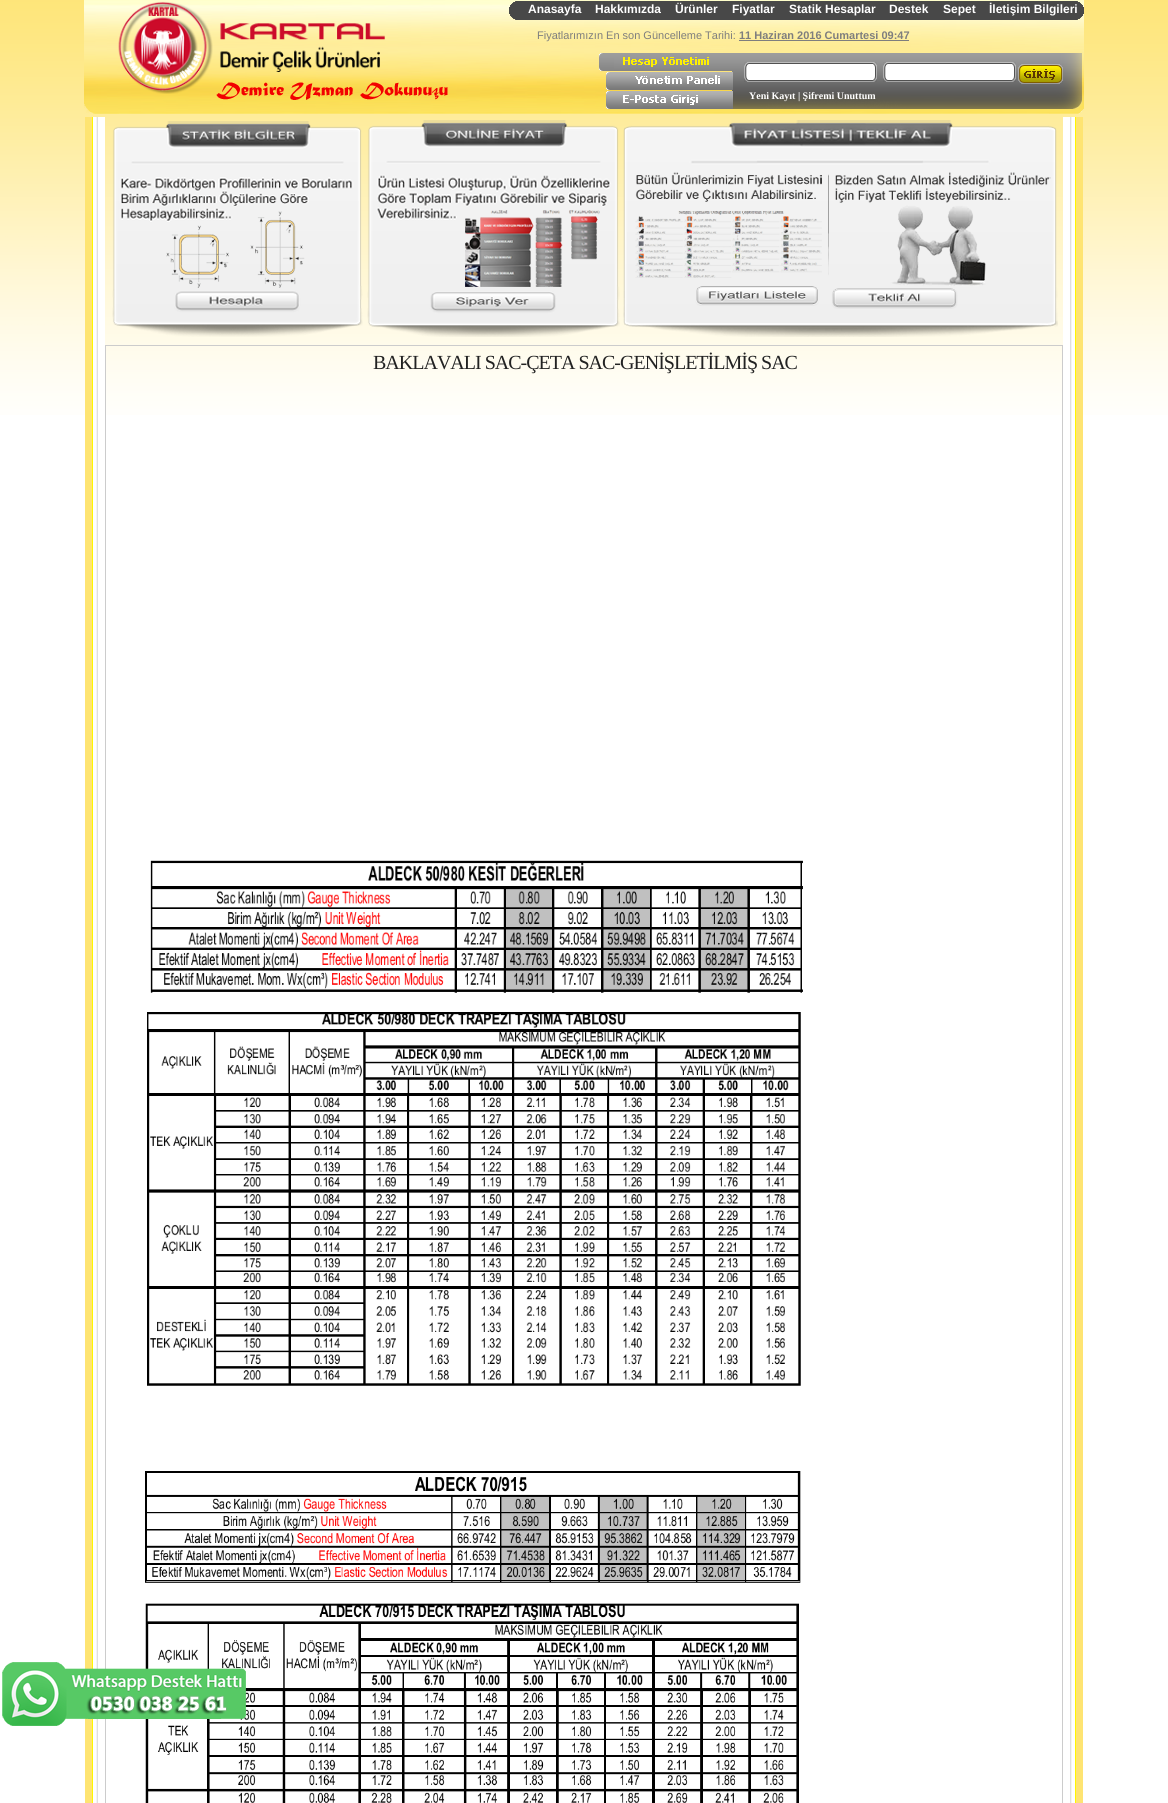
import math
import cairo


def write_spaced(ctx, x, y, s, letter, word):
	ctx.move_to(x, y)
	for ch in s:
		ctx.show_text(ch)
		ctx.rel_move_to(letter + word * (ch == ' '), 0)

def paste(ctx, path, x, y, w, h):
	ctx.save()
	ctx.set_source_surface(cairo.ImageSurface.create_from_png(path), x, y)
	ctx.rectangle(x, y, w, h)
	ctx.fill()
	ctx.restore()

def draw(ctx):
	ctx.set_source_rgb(1, 1, 1)
	ctx.paint()
	paste(ctx, 'media/1.png', 0, 0, 1168, 415)
	paste(ctx, 'media/2.png', 84, 0, 1000, 114)
	paste(ctx, 'media/3.png', 118, 1, 267, 93)
	ctx.select_font_face('Liberation Sans', cairo.FONT_SLANT_NORMAL, cairo.FONT_WEIGHT_BOLD)
	ctx.set_font_size(12)
	ctx.set_source_rgb(1, 1, 1)
	for x, y, s in [
		(528, 13, 'Anasayfa'),
		(595, 13, 'Hakkımızda'),
		(675, 13, 'Ürünler'),
		(732, 13, 'Fiyatlar'),
		(789, 13, 'Statik Hesaplar'),
		(889, 13, 'Destek'),
		(943, 13, 'Sepet'),
		(989, 13, 'İletişim Bilgileri'),
	]:
		ctx.move_to(x, y)
		ctx.show_text(s)
	ctx.select_font_face('Liberation Sans')
	ctx.set_font_size(11)
	ctx.set_source_rgb(0.494, 0.494, 0.494)
	ctx.move_to(537, 39)
	ctx.show_text('Fiyatlarımızın En son Güncelleme Tarihi:')
	ctx.select_font_face('Liberation Sans', cairo.FONT_SLANT_NORMAL, cairo.FONT_WEIGHT_BOLD)
	ctx.move_to(739, 39)
	ctx.show_text('11 Haziran 2016 Cumartesi 09:47')
	ctx.rectangle(739, 40, 170, 1)
	ctx.fill()
	paste(ctx, 'media/4.png', 599, 53, 133, 18)
	paste(ctx, 'media/5.png', 606, 72, 127, 18)
	paste(ctx, 'media/6.png', 606, 91, 127, 18)
	paste(ctx, 'media/7.png', 744, 62, 133, 20)
	ctx.set_source_rgb(1, 1, 1)
	ctx.rectangle(872, 64, 1, 16)
	ctx.fill()
	paste(ctx, 'media/7.png', 883, 62, 133, 20)
	ctx.rectangle(1011, 64, 1, 16)
	ctx.fill()
	paste(ctx, 'media/8.png', 1018, 64, 45, 20)
	ctx.select_font_face('Liberation Serif', cairo.FONT_SLANT_NORMAL, cairo.FONT_WEIGHT_BOLD)
	ctx.set_font_size(10)
	ctx.move_to(749, 99)
	ctx.show_text('Yeni Kayıt | Şifremi Unuttum')
	paste(ctx, 'media/9.png', 85, 117, 20, 228)
	paste(ctx, 'media/10.png', 112, 121, 251, 216)
	paste(ctx, 'media/11.png', 367, 120, 253, 217)
	paste(ctx, 'media/12.png', 623, 120, 435, 217)
	paste(ctx, 'media/13.png', 635, 172, 187, 134)
	paste(ctx, 'media/14.png', 828, 172, 223, 137)
	paste(ctx, 'media/15.png', 1063, 117, 20, 228)
	paste(ctx, 'media/16.png', 85, 345, 20, 1458)
	ctx.rectangle(105.5, 345.5, 957, 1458)
	ctx.set_source_rgb(0.8, 0.8, 0.8)
	ctx.set_line_width(1)
	ctx.stroke()
	ctx.select_font_face('Liberation Serif')
	ctx.set_font_size(20)
	ctx.set_source_rgb(0.133, 0.133, 0.133)
	write_spaced(ctx, 373, 369, 'BAKLAVALI SAC-ÇETA SAC-GENİŞLETİLMİŞ SAC', -1, 0)
	paste(ctx, 'media/17.png', 150, 860, 653, 133)
	paste(ctx, 'media/18.png', 147, 1012, 654, 374)
	paste(ctx, 'media/19.png', 145, 1471, 656, 112)
	paste(ctx, 'media/20.png', 145, 1603, 654, 200)
	paste(ctx, 'media/21.png', 1063, 345, 20, 1458)
	paste(ctx, 'media/22.png', 2, 1662, 244, 64)


surface = cairo.ImageSurface(cairo.FORMAT_RGB24, 1168, 1803)
ctx = cairo.Context(surface)
options = cairo.FontOptions()
options.set_hint_metrics(cairo.HINT_METRICS_OFF)
options.set_hint_style(cairo.HINT_STYLE_NONE)
ctx.set_font_options(options)
ctx.set_miter_limit(4)
draw(ctx)
surface.write_to_png('image.png')
